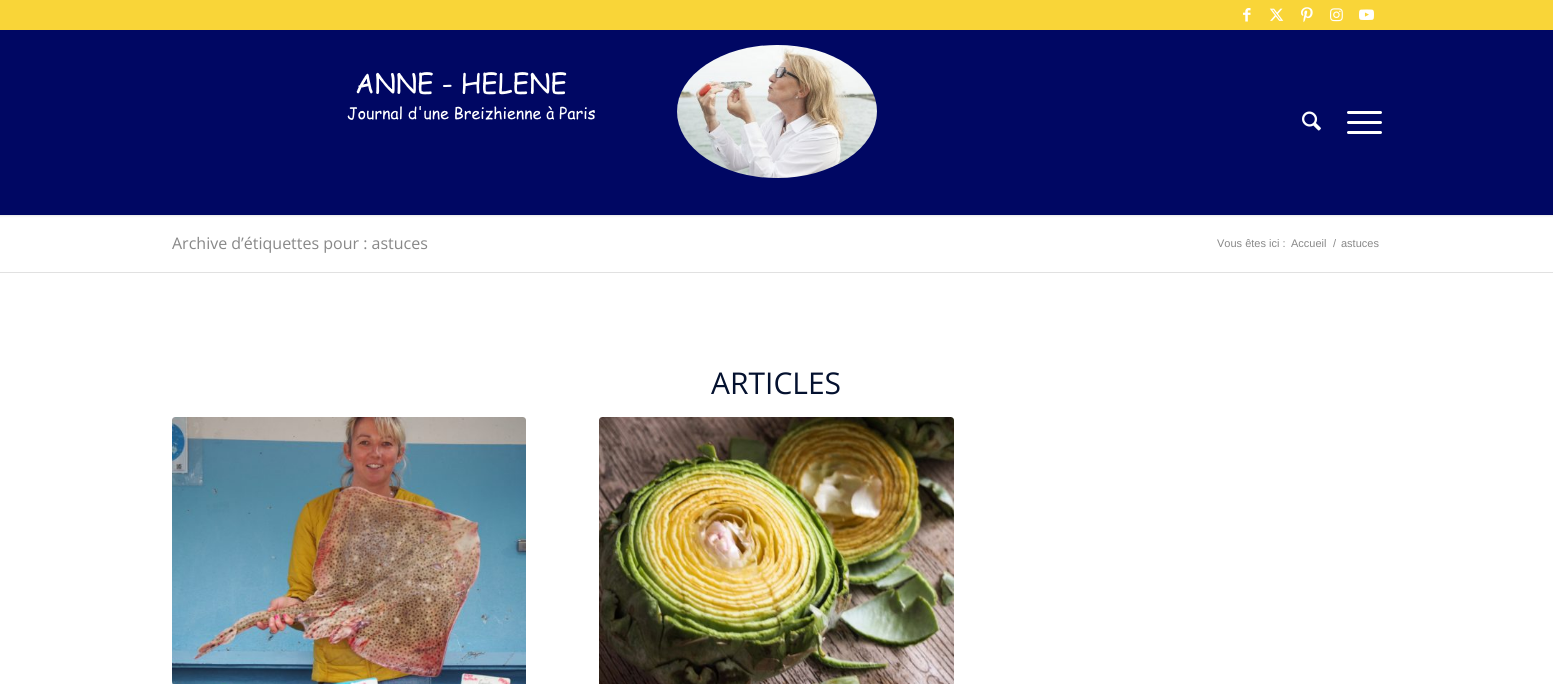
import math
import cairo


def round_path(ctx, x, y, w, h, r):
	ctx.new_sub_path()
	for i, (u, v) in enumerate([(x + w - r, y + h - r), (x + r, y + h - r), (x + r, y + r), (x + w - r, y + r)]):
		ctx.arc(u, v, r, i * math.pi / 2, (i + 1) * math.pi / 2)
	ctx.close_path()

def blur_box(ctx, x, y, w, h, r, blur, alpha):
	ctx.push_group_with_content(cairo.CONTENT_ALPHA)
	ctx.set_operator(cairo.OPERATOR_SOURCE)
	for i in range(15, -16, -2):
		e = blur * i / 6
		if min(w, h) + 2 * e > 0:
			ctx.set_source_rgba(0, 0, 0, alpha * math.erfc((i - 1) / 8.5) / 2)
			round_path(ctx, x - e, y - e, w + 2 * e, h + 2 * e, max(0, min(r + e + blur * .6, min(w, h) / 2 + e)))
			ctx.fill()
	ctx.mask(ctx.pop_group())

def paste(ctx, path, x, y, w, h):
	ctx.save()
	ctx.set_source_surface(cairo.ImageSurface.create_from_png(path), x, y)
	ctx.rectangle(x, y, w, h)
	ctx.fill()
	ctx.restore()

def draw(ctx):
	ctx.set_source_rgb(1, 1, 1)
	ctx.paint()
	ctx.set_source_rgb(0, 0, 0)
	blur_box(ctx, -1, -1, 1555, 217, 0, 1, 0.1)
	ctx.set_source_rgb(0.973, 0.835, 0.22)
	ctx.rectangle(0, 0, 1553, 30)
	ctx.fill()
	paste(ctx, 'media/1.png', 1243, 8, 8, 14)
	paste(ctx, 'media/2.png', 1269, 8, 15, 13)
	paste(ctx, 'media/3.png', 1301, 7, 12, 16)
	paste(ctx, 'media/4.png', 1330, 8, 13, 14)
	paste(ctx, 'media/5.png', 1359, 9, 15, 11)
	ctx.set_source_rgb(0, 0.031, 0.388)
	ctx.rectangle(0, 30, 1553, 185)
	ctx.fill()
	paste(ctx, 'media/6.png', 677, 45, 200, 133)
	paste(ctx, 'media/7.png', 347, 72, 248, 48)
	paste(ctx, 'media/8.png', 1302, 111, 19, 20)
	ctx.set_source_rgb(1, 1, 1)
	round_path(ctx, 1347, 121, 35, 3, 1.5)
	ctx.fill()
	round_path(ctx, 1347, 111, 35, 3, 1.5)
	ctx.fill()
	round_path(ctx, 1347, 131, 35, 3, 1.5)
	ctx.fill()
	ctx.select_font_face('Open Sans')
	ctx.set_font_size(16)
	ctx.set_source_rgb(0.533, 0.533, 0.533)
	ctx.move_to(172, 249)
	ctx.show_text('Archive d’étiquettes pour : astuces')
	ctx.select_font_face('Liberation Sans')
	ctx.set_font_size(11)
	for x, y, s in [
		(1217, 247, 'Vous êtes ici :'),
		(1291, 247, 'Accueil'),
		(1333, 247, '/'),
		(1341, 247, 'astuces'),
	]:
		ctx.move_to(x, y)
		ctx.show_text(s)
	ctx.set_source_rgb(0.882, 0.882, 0.882)
	ctx.rectangle(0, 272, 1553, 1)
	ctx.fill()
	ctx.select_font_face('Open Sans')
	ctx.set_font_size(30)
	ctx.set_source_rgb(0.016, 0.067, 0.184)
	ctx.move_to(711, 394)
	ctx.show_text('ARTICLES')
	paste(ctx, 'media/9.png', 172, 417, 354, 267)
	paste(ctx, 'media/10.png', 599, 417, 355, 267)


surface = cairo.ImageSurface(cairo.FORMAT_RGB24, 1553, 684)
ctx = cairo.Context(surface)
options = cairo.FontOptions()
options.set_hint_metrics(cairo.HINT_METRICS_OFF)
options.set_hint_style(cairo.HINT_STYLE_NONE)
ctx.set_font_options(options)
ctx.set_miter_limit(4)
draw(ctx)
surface.write_to_png('image.png')
